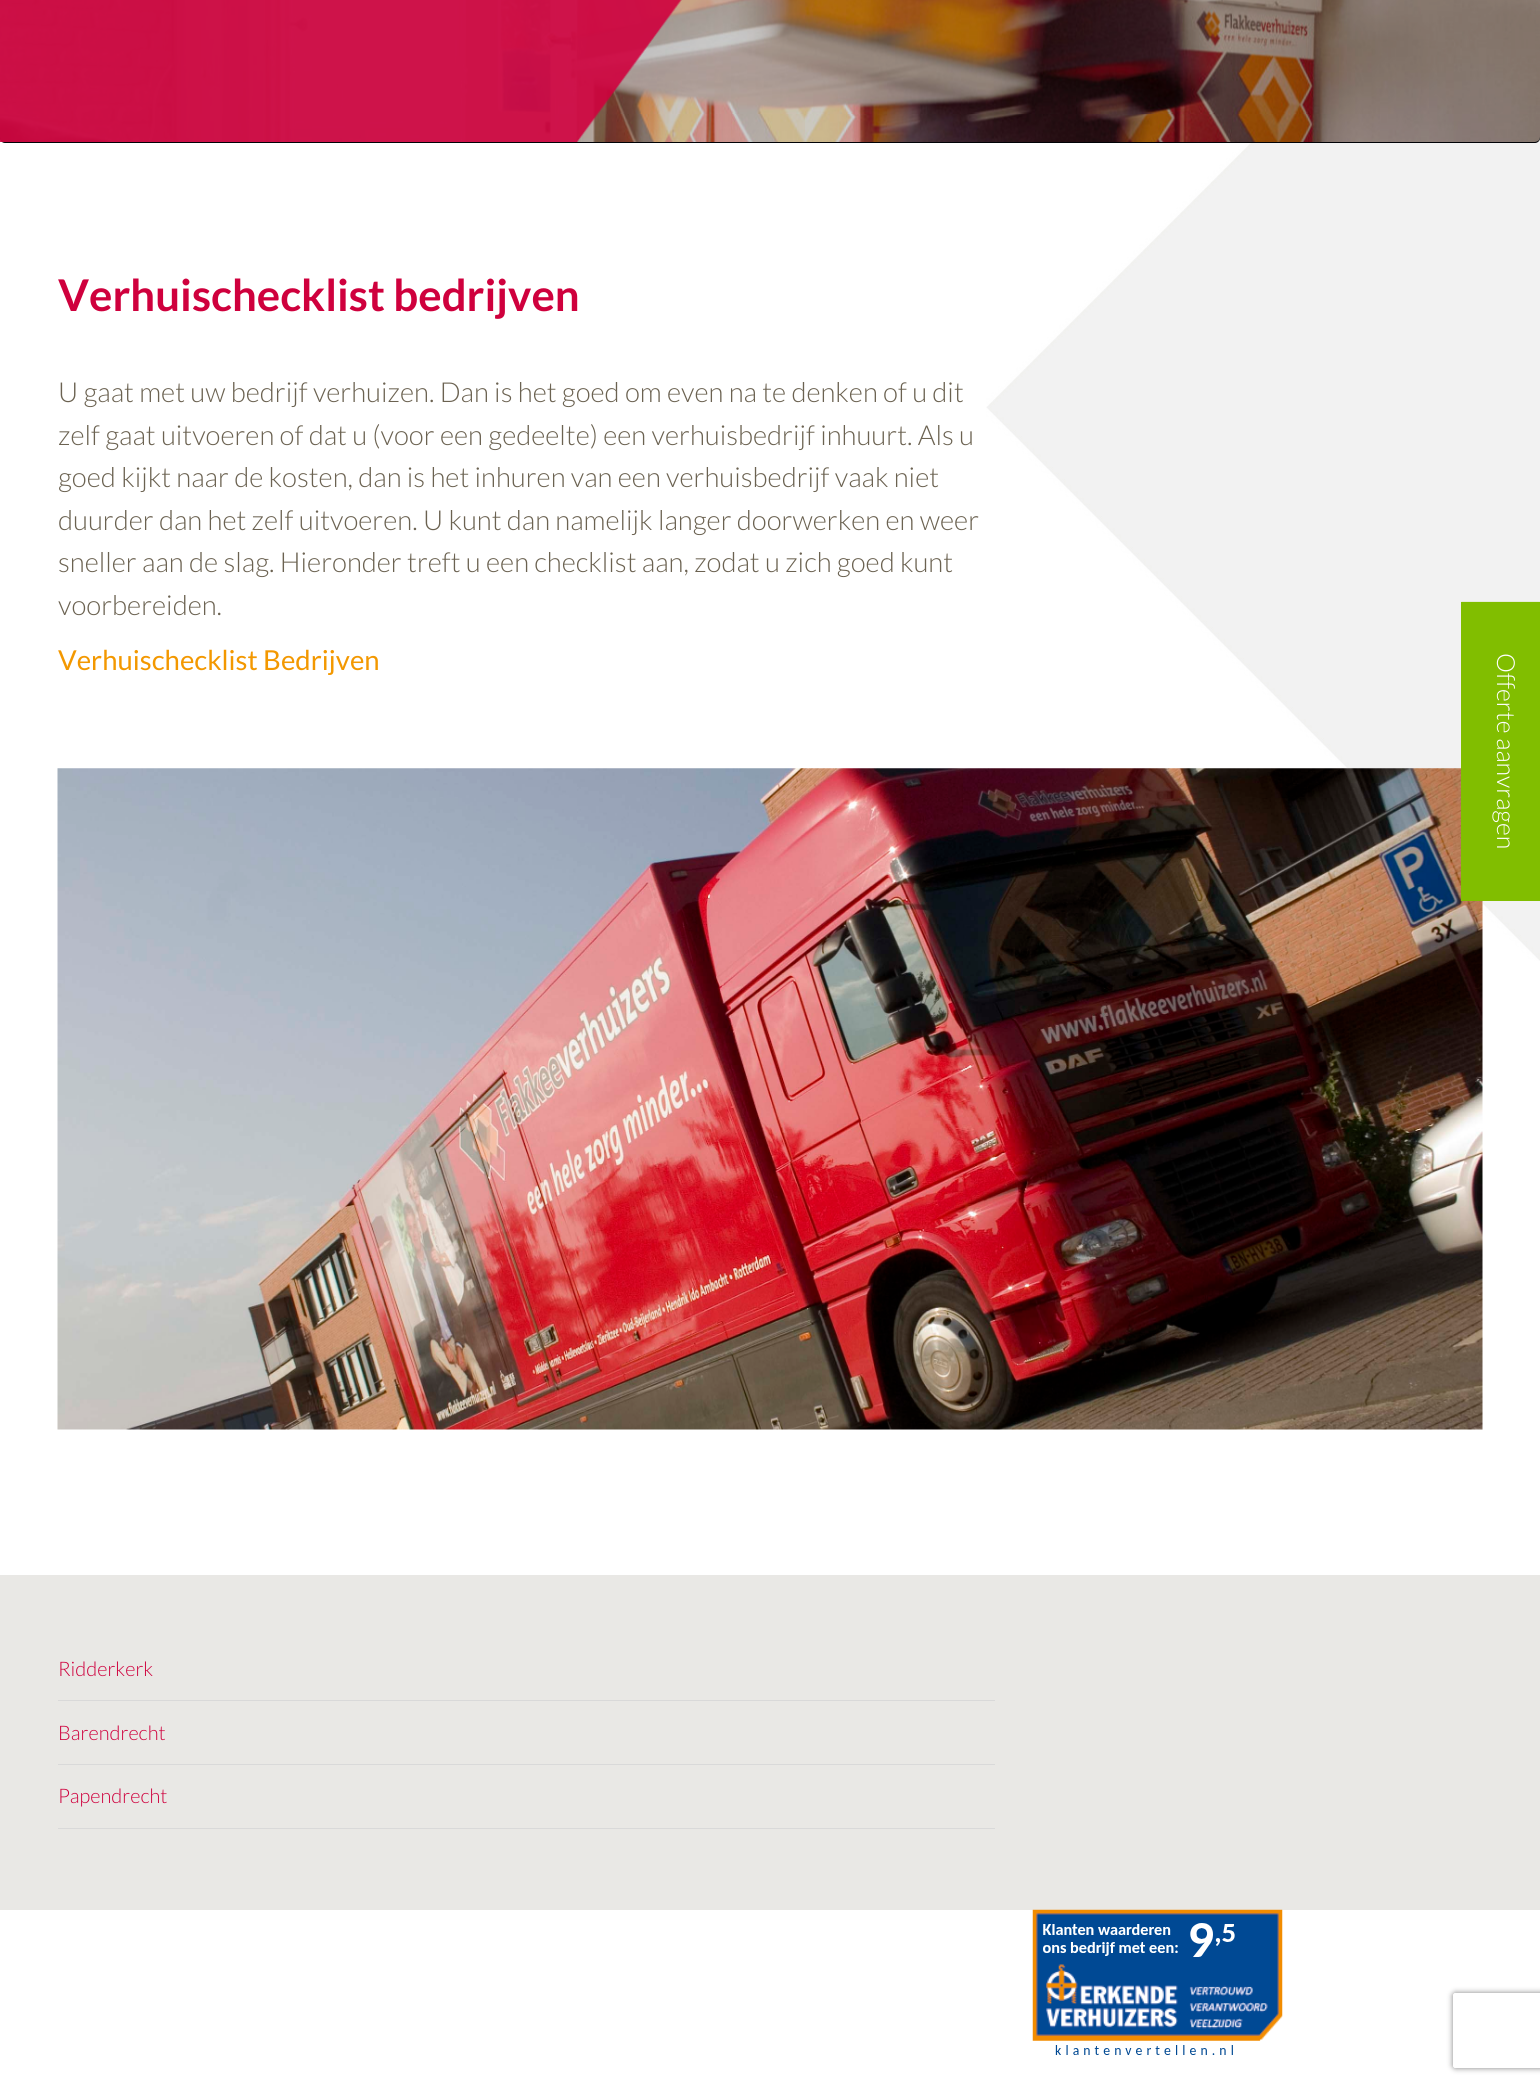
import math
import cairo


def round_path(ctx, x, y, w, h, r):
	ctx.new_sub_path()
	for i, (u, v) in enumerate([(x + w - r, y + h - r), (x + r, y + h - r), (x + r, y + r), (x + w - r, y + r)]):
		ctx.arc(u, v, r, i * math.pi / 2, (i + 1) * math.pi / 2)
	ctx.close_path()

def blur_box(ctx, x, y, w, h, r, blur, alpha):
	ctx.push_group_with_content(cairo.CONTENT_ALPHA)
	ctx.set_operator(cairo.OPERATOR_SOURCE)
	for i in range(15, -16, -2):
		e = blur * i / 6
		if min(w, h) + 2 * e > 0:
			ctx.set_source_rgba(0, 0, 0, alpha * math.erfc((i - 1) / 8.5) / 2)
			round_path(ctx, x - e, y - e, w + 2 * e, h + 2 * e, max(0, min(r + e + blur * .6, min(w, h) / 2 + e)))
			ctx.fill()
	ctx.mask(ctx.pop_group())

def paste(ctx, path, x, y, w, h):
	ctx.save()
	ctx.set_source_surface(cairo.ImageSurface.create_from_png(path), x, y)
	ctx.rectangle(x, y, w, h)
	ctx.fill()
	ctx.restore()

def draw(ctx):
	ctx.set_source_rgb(1, 1, 1)
	ctx.paint()
	paste(ctx, 'media/1.png', 986, 138, 554, 823)
	ctx.set_source_rgb(0, 0.008, 0.024)
	round_path(ctx, 0, -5, 1540, 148, 5)
	ctx.fill()
	paste(ctx, 'media/2.png', 0, 0, 1540, 142)
	paste(ctx, 'media/3.png', 0, 0, 682, 142)
	ctx.select_font_face('Lato', cairo.FONT_SLANT_NORMAL, cairo.FONT_WEIGHT_BOLD)
	ctx.set_font_size(43.75)
	ctx.set_source_rgb(0.812, 0, 0.239)
	ctx.move_to(58, 311)
	ctx.show_text('Verhuischecklist bedrijven')
	ctx.select_font_face('Lato Light')
	ctx.set_font_size(27.5)
	ctx.set_source_rgb(0.42, 0.384, 0.318)
	for x, y, s in [
		(58, 402, 'U gaat met uw bedrijf verhuizen. Dan is het goed om even na te denken of u dit'),
		(58, 445, 'zelf gaat uitvoeren of dat u (voor een gedeelte) een verhuisbedrijf inhuurt. Als u'),
		(58, 487, 'goed kijkt naar de kosten, dan is het inhuren van een verhuisbedrijf vaak niet'),
		(58, 530, 'duurder dan het zelf uitvoeren. U kunt dan namelijk langer doorwerken en weer'),
		(58, 572, 'sneller aan de slag. Hieronder treft u een checklist aan, zodat u zich goed kunt'),
		(58, 615, 'voorbereiden.'),
	]:
		ctx.move_to(x, y)
		ctx.show_text(s)
	ctx.select_font_face('Lato')
	ctx.set_source_rgb(0.953, 0.596, 0)
	ctx.move_to(58, 670)
	ctx.show_text('Verhuischecklist Bedrijven')
	paste(ctx, 'media/4.png', 57, 768, 1426, 662)
	ctx.set_source_rgb(0.506, 0.745, 0)
	ctx.rectangle(1461, 602, 79, 299)
	ctx.fill()
	ctx.new_path()
	ctx.move_to(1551.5, 602.5)
	ctx.line_to(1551.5, 900)
	ctx.line_to(1462, 900)
	ctx.line_to(1462, 602.5)
	ctx.close_path()
	ctx.set_line_width(1.2)
	ctx.stroke()
	ctx.select_font_face('Lato Light')
	ctx.set_font_size(25)
	ctx.set_source_rgb(1, 1, 1)
	ctx.save()
	ctx.translate(1497, 653)
	ctx.rotate(90 * math.pi / 180)
	ctx.move_to(0, 0)
	ctx.show_text('Offerte aanvragen')
	ctx.restore()
	ctx.set_source_rgb(0.914, 0.91, 0.898)
	ctx.rectangle(0, 1575, 1540, 335)
	ctx.fill()
	ctx.set_source_rgb(0.851, 0.851, 0.851)
	ctx.rectangle(58, 1700, 937, 1)
	ctx.fill()
	ctx.set_font_size(20)
	ctx.set_source_rgb(0.812, 0, 0.239)
	ctx.move_to(58, 1676)
	ctx.show_text('Ridderkerk')
	ctx.set_source_rgb(0.851, 0.851, 0.851)
	ctx.rectangle(58, 1764, 937, 1)
	ctx.fill()
	ctx.set_source_rgb(0.812, 0, 0.239)
	ctx.move_to(58, 1740)
	ctx.show_text('Barendrecht')
	ctx.set_source_rgb(0.851, 0.851, 0.851)
	ctx.rectangle(58, 1828, 937, 1)
	ctx.fill()
	ctx.set_source_rgb(0.812, 0, 0.239)
	ctx.move_to(58, 1803)
	ctx.show_text('Papendrecht')
	paste(ctx, 'media/5.png', 1032, 1909, 251, 146)
	ctx.save()
	ctx.set_fill_rule(cairo.FILL_RULE_EVEN_ODD)
	ctx.new_path()
	ctx.move_to(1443, 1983)
	ctx.line_to(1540, 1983)
	ctx.line_to(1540, 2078)
	ctx.line_to(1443, 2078)
	ctx.close_path()
	ctx.move_to(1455.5, 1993)
	ctx.line_to(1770.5, 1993)
	ctx.curve_to(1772, 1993, 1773, 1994, 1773, 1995.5)
	ctx.line_to(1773, 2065.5)
	ctx.curve_to(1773, 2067, 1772, 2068, 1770.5, 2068)
	ctx.line_to(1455.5, 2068)
	ctx.curve_to(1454, 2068, 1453, 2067, 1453, 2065.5)
	ctx.line_to(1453, 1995.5)
	ctx.curve_to(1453, 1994, 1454, 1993, 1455.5, 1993)
	ctx.close_path()
	ctx.clip()
	ctx.set_source_rgb(0.502, 0.502, 0.502)
	blur_box(ctx, 1453, 1993, 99, 75, 2.5, 3, 1)
	ctx.restore()


surface = cairo.ImageSurface(cairo.FORMAT_RGB24, 1540, 2085)
ctx = cairo.Context(surface)
options = cairo.FontOptions()
options.set_hint_metrics(cairo.HINT_METRICS_OFF)
options.set_hint_style(cairo.HINT_STYLE_NONE)
ctx.set_font_options(options)
ctx.set_miter_limit(4)
draw(ctx)
surface.write_to_png('image.png')
